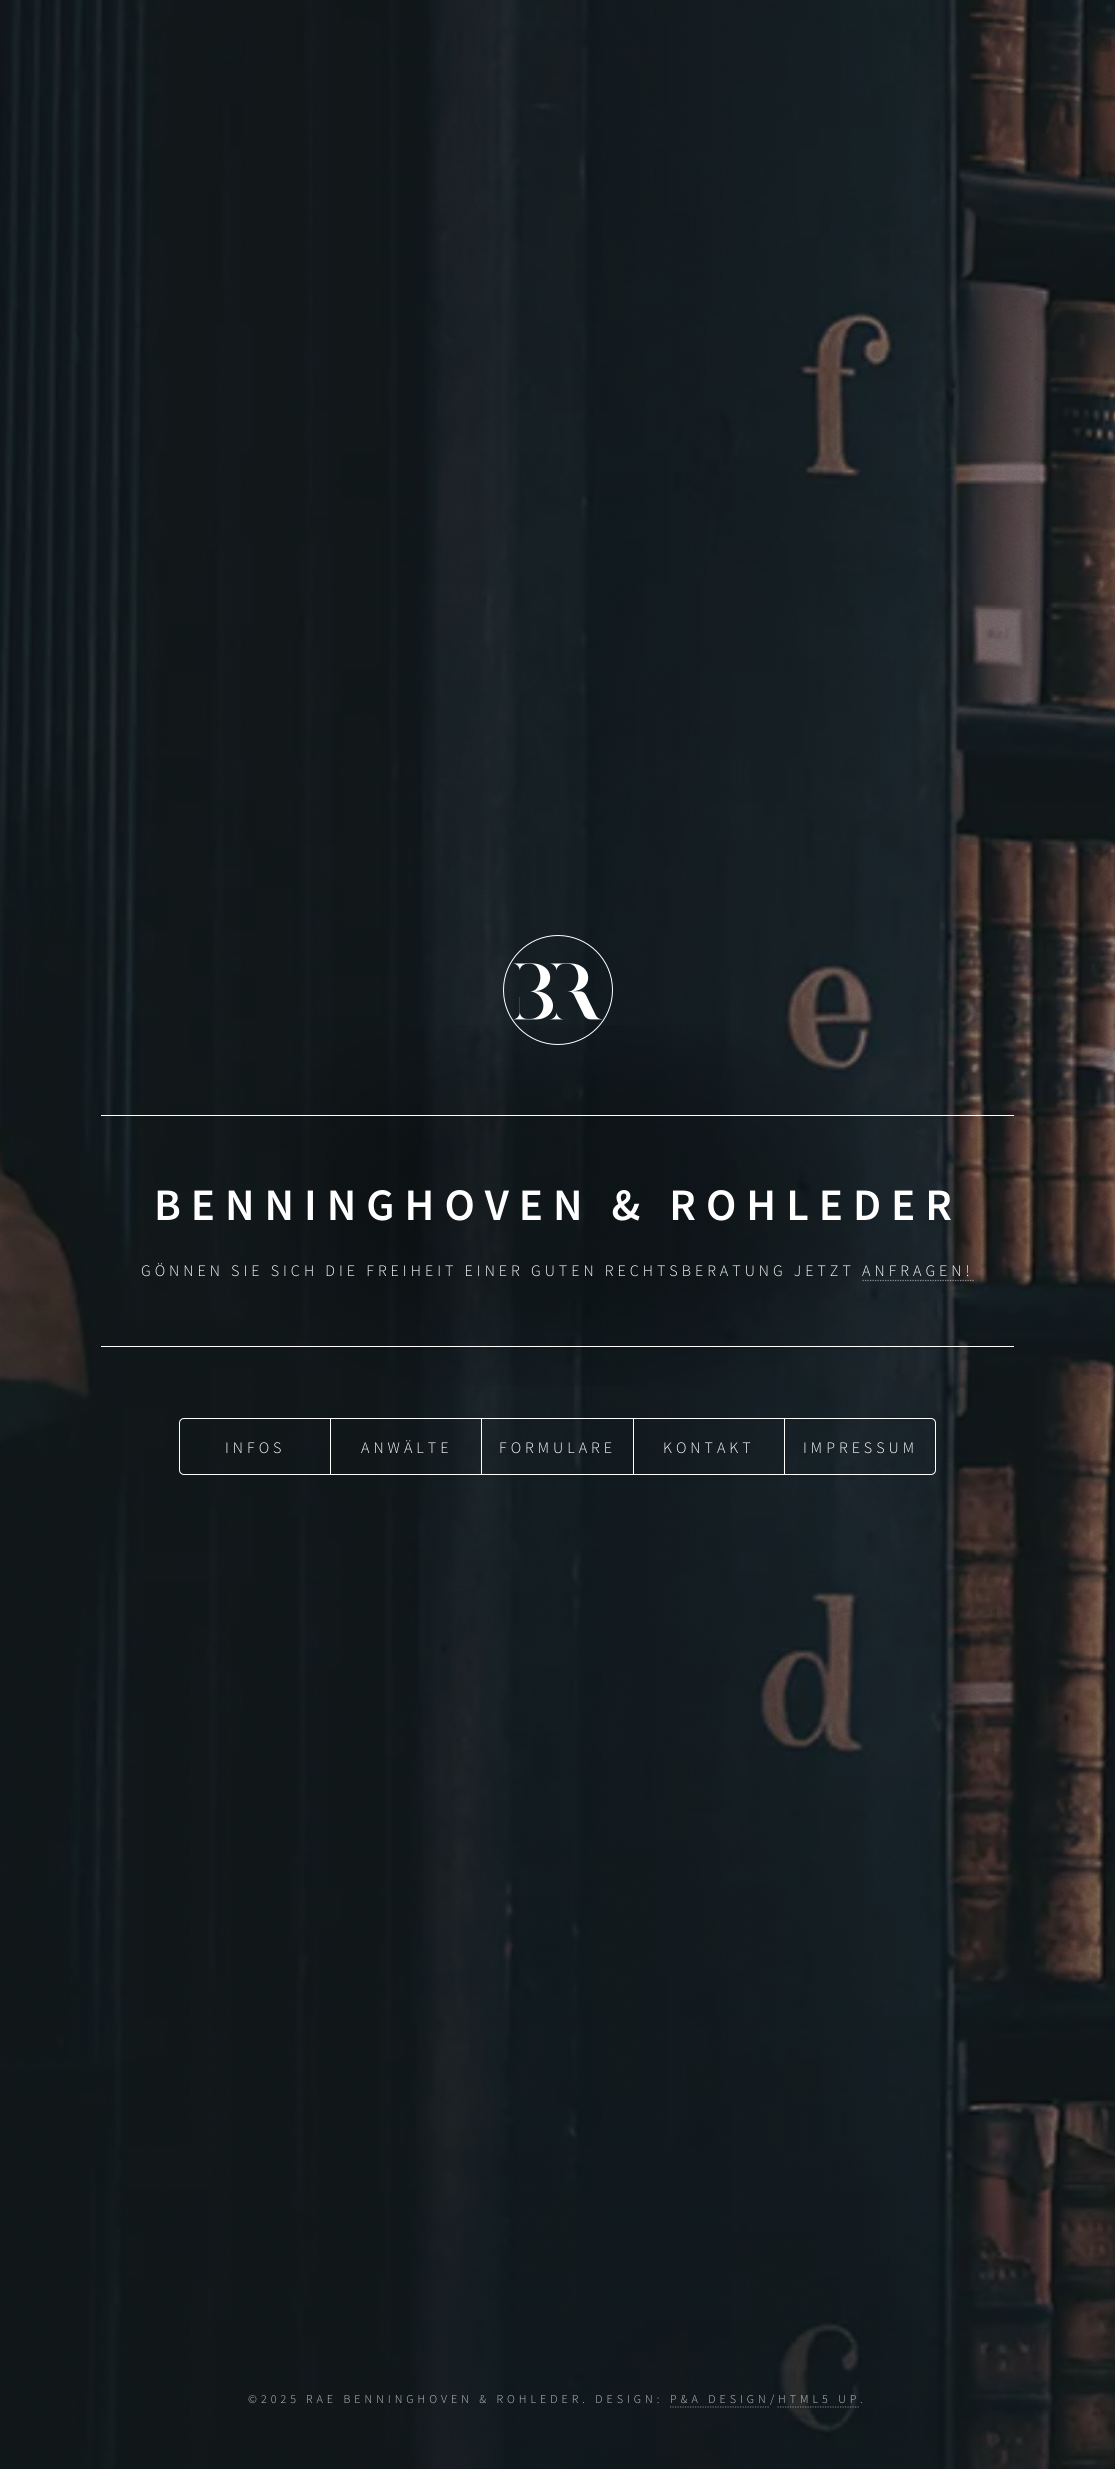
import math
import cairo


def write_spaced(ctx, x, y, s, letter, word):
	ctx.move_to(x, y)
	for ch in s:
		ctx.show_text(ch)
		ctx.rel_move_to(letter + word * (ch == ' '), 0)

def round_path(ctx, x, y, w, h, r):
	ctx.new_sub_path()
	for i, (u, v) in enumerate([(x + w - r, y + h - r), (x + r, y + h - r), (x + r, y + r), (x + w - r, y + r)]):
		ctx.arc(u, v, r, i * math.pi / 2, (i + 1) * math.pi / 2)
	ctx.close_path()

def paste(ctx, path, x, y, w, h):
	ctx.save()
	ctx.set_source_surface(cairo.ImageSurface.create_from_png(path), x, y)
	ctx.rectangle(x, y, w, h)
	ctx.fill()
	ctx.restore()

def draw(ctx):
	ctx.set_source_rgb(1, 1, 1)
	ctx.paint()
	paste(ctx, 'media/1.png', 0, 0, 1115, 2469)
	paste(ctx, 'media/2.png', 0, 0, 1115, 2469)
	gradient = cairo.RadialGradient(0, 0, 0, 0, 0, 1)
	gradient.set_matrix(cairo.Matrix(1 / 645, 0, 0, 1 / 382, -1 * 558 / 645, -1 * 1205 / 382))
	gradient.add_color_stop_rgba(0.25, 0, 0, 0, 0.25)
	gradient.add_color_stop_rgba(0.55, 0, 0, 0, 0)
	ctx.set_source(gradient)
	ctx.rectangle(280, 1025, 585, 361)
	ctx.fill()
	ctx.arc(558, 990, 54.5, 0, 2 * math.pi)
	ctx.set_source_rgb(1, 1, 1)
	ctx.set_line_width(1)
	ctx.stroke()
	paste(ctx, 'media/3.png', 513, 963, 90, 57)
	ctx.rectangle(101, 1115, 913, 1)
	ctx.fill()
	ctx.rectangle(101, 1346, 913, 1)
	ctx.fill()
	ctx.select_font_face('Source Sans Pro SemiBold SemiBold')
	ctx.set_font_size(45)
	write_spaced(ctx, 154, 1220, 'BENNINGHOVEN & ROHLEDER', 10, 0)
	ctx.select_font_face('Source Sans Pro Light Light')
	ctx.set_font_size(16)
	write_spaced(ctx, 141, 1276, 'GÖNNEN SIE SICH DIE FREIHEIT EINER GUTEN RECHTSBERATUNG JETZT ANFRAGEN!', 4, 0)
	ctx.new_path()
	ctx.move_to(862.5, 1280.5)
	ctx.line_to(974, 1280.5)
	ctx.set_source_rgba(1, 1, 1, 0.5)
	ctx.set_line_width(1.2)
	ctx.set_dash([1.25, 1.25])
	ctx.stroke()
	round_path(ctx, 179.5, 1418.5, 756, 56, 4.5)
	ctx.set_source_rgb(1, 1, 1)
	ctx.set_line_width(1)
	ctx.set_dash([])
	ctx.stroke()
	write_spaced(ctx, 225, 1453, 'INFOS', 4, 0)
	ctx.rectangle(330, 1419, 1, 55)
	ctx.fill()
	write_spaced(ctx, 361, 1453, 'ANWÄLTE', 4, 0)
	ctx.rectangle(481, 1419, 1, 55)
	ctx.fill()
	write_spaced(ctx, 499, 1453, 'FORMULARE', 4, 0)
	ctx.rectangle(633, 1419, 1, 55)
	ctx.fill()
	write_spaced(ctx, 663, 1453, 'KONTAKT', 4, 0)
	ctx.rectangle(784, 1419, 1, 55)
	ctx.fill()
	write_spaced(ctx, 803, 1453, 'IMPRESSUM', 4, 0)
	ctx.set_font_size(12)
	ctx.set_source_rgb(0.765, 0.773, 0.776)
	for x, y, s in [
		(248, 2403, '©2025'),
		(306, 2403, 'RAE BENNINGHOVEN & ROHLEDER. DESIGN:'),
		(670, 2403, 'P&A DESIGN'),
	]:
		write_spaced(ctx, x, y, s, 4, 0)
	ctx.new_path()
	ctx.move_to(670, 2407)
	ctx.line_to(770, 2407)
	ctx.set_source_rgba(1, 1, 1, 0.38)
	ctx.set_line_width(1.2)
	ctx.set_dash([1.25, 1.25])
	ctx.stroke()
	ctx.set_source_rgb(0.765, 0.773, 0.776)
	write_spaced(ctx, 770, 2403, '/', 4, 0)
	write_spaced(ctx, 778, 2403, 'HTML5 UP', 4, 0)
	ctx.new_path()
	ctx.move_to(777.5, 2407)
	ctx.line_to(860, 2407)
	ctx.set_source_rgba(1, 1, 1, 0.38)
	ctx.stroke()
	ctx.set_source_rgb(0.765, 0.773, 0.776)
	write_spaced(ctx, 860, 2403, '.', 4, 0)


surface = cairo.ImageSurface(cairo.FORMAT_RGB24, 1115, 2469)
ctx = cairo.Context(surface)
options = cairo.FontOptions()
options.set_hint_metrics(cairo.HINT_METRICS_OFF)
options.set_hint_style(cairo.HINT_STYLE_NONE)
ctx.set_font_options(options)
ctx.set_miter_limit(4)
draw(ctx)
surface.write_to_png('image.png')
